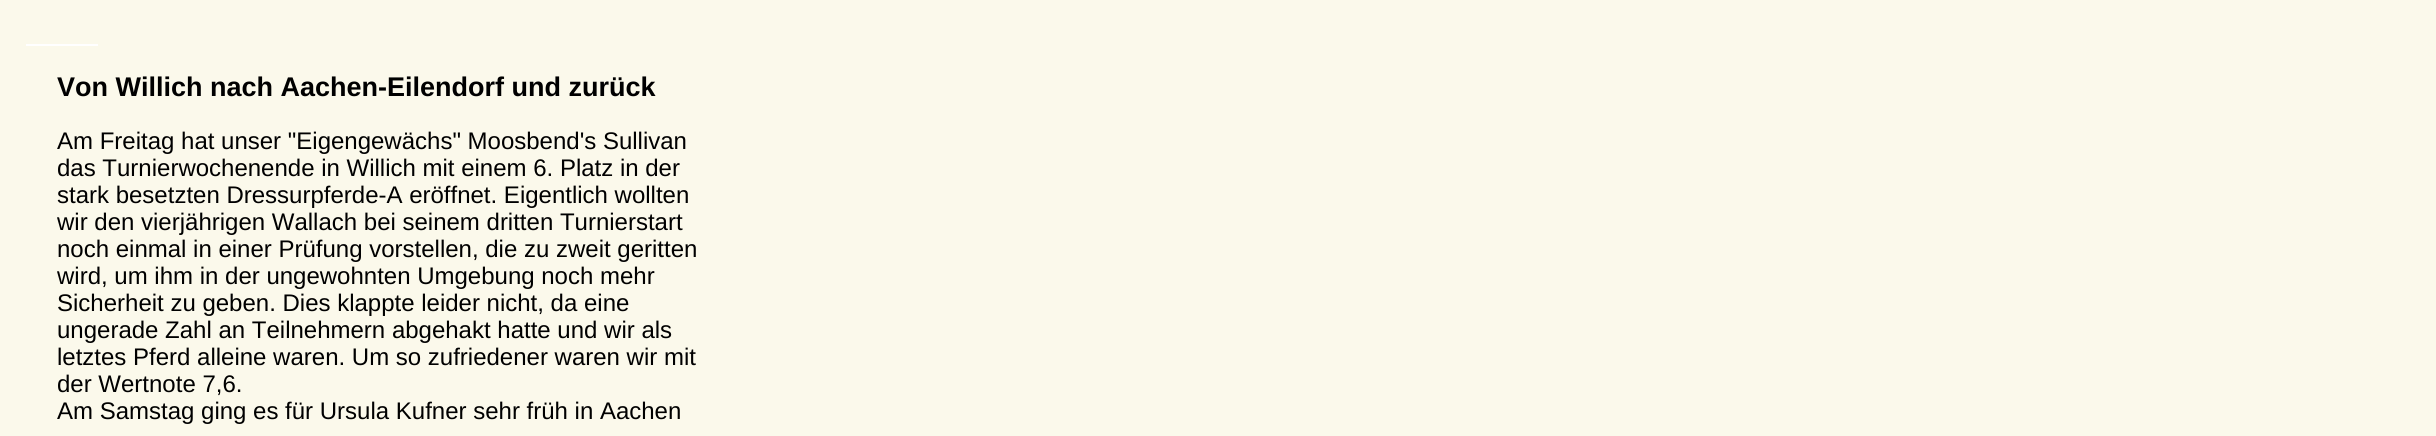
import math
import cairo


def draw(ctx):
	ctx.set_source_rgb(0.984, 0.976, 0.918)
	ctx.paint()
	ctx.set_source_rgb(1, 1, 1)
	ctx.rectangle(26, 44, 72, 2)
	ctx.fill()
	ctx.select_font_face('Liberation Sans', cairo.FONT_SLANT_NORMAL, cairo.FONT_WEIGHT_BOLD)
	ctx.set_font_size(27)
	ctx.set_source_rgb(0, 0, 0)
	ctx.move_to(57, 96)
	ctx.show_text('Von Willich nach Aachen-Eilendorf und zurück')
	ctx.select_font_face('Liberation Sans')
	ctx.set_font_size(24)
	for x, y, s in [
		(57, 149, 'Am Freitag hat unser "Eigengewächs" Moosbend\'s Sullivan'),
		(57, 176, 'das Turnierwochenende in Willich mit einem 6. Platz in der'),
		(57, 203, 'stark besetzten Dressurpferde-A eröffnet. Eigentlich wollten'),
		(57, 230, 'wir den vierjährigen Wallach bei seinem dritten Turnierstart'),
		(57, 257, 'noch einmal in einer Prüfung vorstellen, die zu zweit geritten'),
		(57, 284, 'wird, um ihm in der ungewohnten Umgebung noch mehr'),
		(57, 311, 'Sicherheit zu geben. Dies klappte leider nicht, da eine'),
		(57, 338, 'ungerade Zahl an Teilnehmern abgehakt hatte und wir als'),
		(57, 365, 'letztes Pferd alleine waren. Um so zufriedener waren wir mit'),
		(57, 392, 'der Wertnote 7,6.'),
		(57, 419, 'Am Samstag ging es für Ursula Kufner sehr früh in Aachen'),
	]:
		ctx.move_to(x, y)
		ctx.show_text(s)


surface = cairo.ImageSurface(cairo.FORMAT_RGB24, 2436, 436)
ctx = cairo.Context(surface)
options = cairo.FontOptions()
options.set_hint_metrics(cairo.HINT_METRICS_OFF)
options.set_hint_style(cairo.HINT_STYLE_NONE)
ctx.set_font_options(options)
ctx.set_miter_limit(4)
draw(ctx)
surface.write_to_png('image.png')
